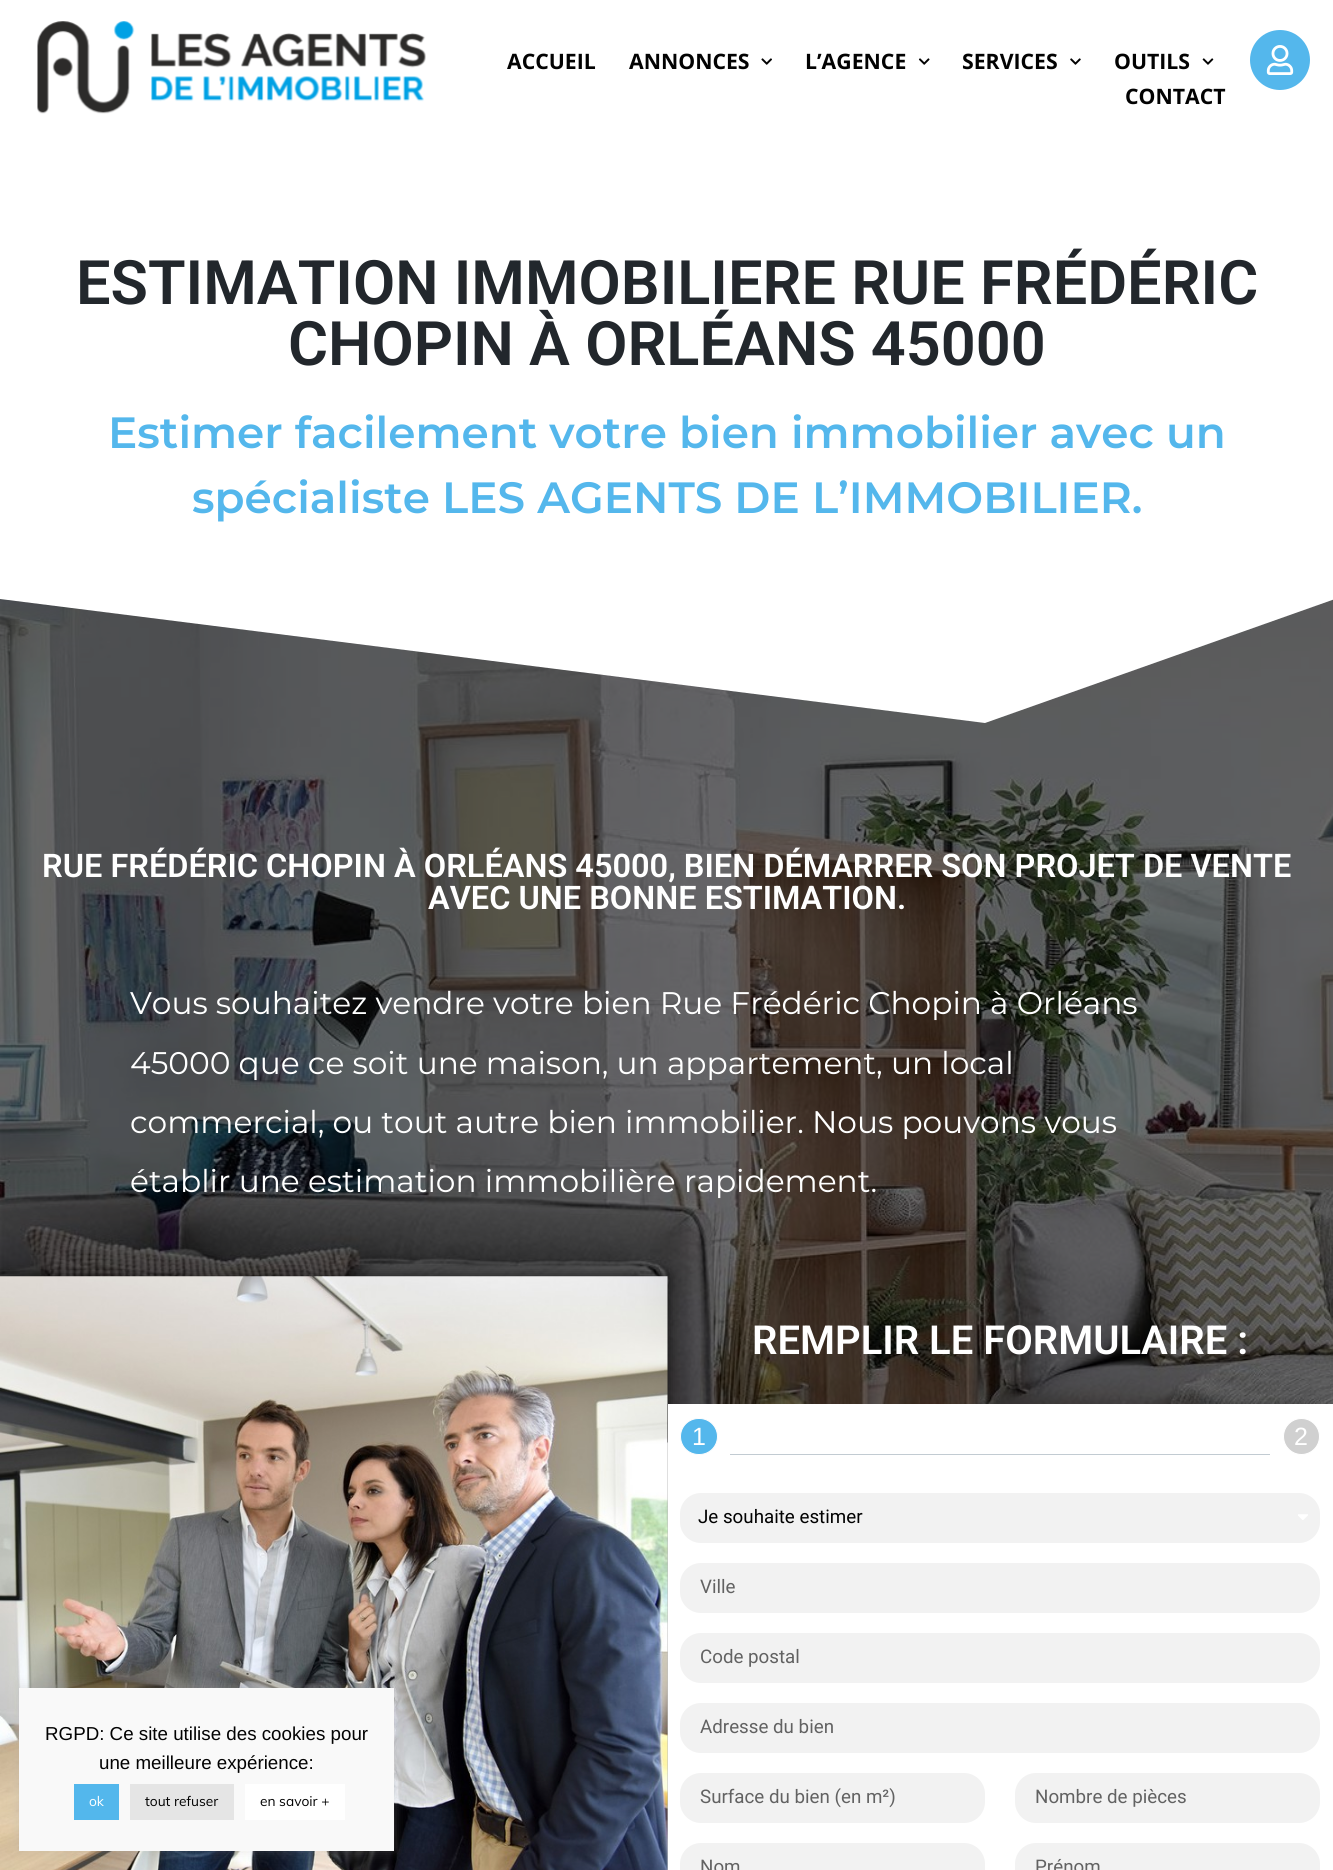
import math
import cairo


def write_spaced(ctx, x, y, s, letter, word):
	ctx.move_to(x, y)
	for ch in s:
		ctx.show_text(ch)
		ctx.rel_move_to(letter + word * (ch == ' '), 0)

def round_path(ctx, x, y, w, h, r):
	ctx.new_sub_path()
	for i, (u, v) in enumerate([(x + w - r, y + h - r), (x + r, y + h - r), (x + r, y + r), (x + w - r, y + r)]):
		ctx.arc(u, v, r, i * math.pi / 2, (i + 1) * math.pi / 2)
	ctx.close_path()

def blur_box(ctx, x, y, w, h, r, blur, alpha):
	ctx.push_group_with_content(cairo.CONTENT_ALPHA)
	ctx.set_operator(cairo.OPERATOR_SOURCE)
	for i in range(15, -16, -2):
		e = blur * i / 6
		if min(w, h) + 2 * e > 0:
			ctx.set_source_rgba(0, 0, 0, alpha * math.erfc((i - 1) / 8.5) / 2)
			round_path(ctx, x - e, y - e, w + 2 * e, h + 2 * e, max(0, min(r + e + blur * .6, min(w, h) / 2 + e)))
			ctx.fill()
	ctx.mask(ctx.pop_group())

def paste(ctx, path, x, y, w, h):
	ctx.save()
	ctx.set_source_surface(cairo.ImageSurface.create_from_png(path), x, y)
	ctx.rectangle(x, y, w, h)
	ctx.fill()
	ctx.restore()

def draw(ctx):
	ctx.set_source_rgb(1, 1, 1)
	ctx.paint()
	paste(ctx, 'media/1.png', 37, 21, 389, 93)
	ctx.select_font_face('Open Sans', cairo.FONT_SLANT_NORMAL, cairo.FONT_WEIGHT_BOLD)
	ctx.set_font_size(21.25)
	ctx.set_source_rgb(0.008, 0.008, 0.008)
	ctx.move_to(507, 69)
	ctx.show_text('ACCUEIL')
	ctx.move_to(629, 69)
	ctx.show_text('ANNONCES')
	paste(ctx, 'media/2.png', 761, 58, 11, 7)
	ctx.move_to(805, 69)
	ctx.show_text('L’AGENCE')
	paste(ctx, 'media/3.png', 918, 58, 12, 7)
	ctx.move_to(962, 69)
	ctx.show_text('SERVICES')
	paste(ctx, 'media/4.png', 1070, 58, 11, 7)
	ctx.move_to(1114, 69)
	ctx.show_text('OUTILS')
	paste(ctx, 'media/5.png', 1202, 58, 12, 7)
	ctx.move_to(1125, 104)
	ctx.show_text('CONTACT')
	ctx.set_source_rgb(0.329, 0.718, 0.925)
	ctx.new_path()
	ctx.arc(1280, 60, 30, 0, 2 * math.pi)
	ctx.fill()
	paste(ctx, 'media/6.png', 1266, 45, 28, 30)
	ctx.select_font_face('Roboto SemiBold')
	ctx.set_font_size(61.25)
	ctx.set_source_rgb(0.133, 0.153, 0.173)
	ctx.move_to(76, 304)
	ctx.show_text('ESTIMATION IMMOBILIERE RUE FRÉDÉRIC')
	ctx.move_to(288, 365)
	ctx.show_text('CHOPIN À ORLÉANS 45000')
	ctx.select_font_face('Montserrat SemiBold')
	ctx.set_font_size(43.75)
	ctx.set_source_rgb(0.329, 0.718, 0.925)
	ctx.move_to(108, 448)
	ctx.show_text('Estimer facilement votre bien immobilier avec un')
	ctx.move_to(192, 513)
	ctx.show_text('spécialiste LES AGENTS DE L’IMMOBILIER.')
	paste(ctx, 'media/7.png', 0, 599, 1333, 844)
	ctx.set_source_rgb(1, 1, 1)
	ctx.new_path()
	ctx.move_to(985, 723)
	ctx.line_to(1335, 599)
	ctx.line_to(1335, 591)
	ctx.line_to(0, 591)
	ctx.line_to(0, 599)
	ctx.close_path()
	ctx.fill()
	ctx.select_font_face('Roboto SemiBold')
	ctx.set_font_size(32.5)
	ctx.move_to(42, 877)
	ctx.show_text('RUE FRÉDÉRIC CHOPIN À ORLÉANS 45000, BIEN DÉMARRER SON PROJET DE VENTE')
	ctx.move_to(428, 909)
	ctx.show_text('AVEC UNE BONNE ESTIMATION.')
	ctx.select_font_face('Montserrat')
	ctx.set_font_size(31.25)
	for x, y, s in [
		(130, 1014, 'Vous souhaitez vendre votre bien Rue Frédéric Chopin à Orléans'),
		(130, 1074, '45000 que ce soit une maison, un appartement, un local'),
		(130, 1133, 'commercial, ou tout autre bien immobilier. Nous pouvons vous'),
		(130, 1192, 'établir une estimation immobilière rapidement.'),
	]:
		ctx.move_to(x, y)
		ctx.show_text(s)
	ctx.set_source_rgb(0, 0, 0)
	blur_box(ctx, 0, 1276, 668, 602, 0, 6, 0.5)
	paste(ctx, 'media/8.png', 0, 1276, 668, 594)
	ctx.select_font_face('Roboto SemiBold')
	ctx.set_font_size(40)
	ctx.set_source_rgb(1, 1, 1)
	ctx.move_to(752, 1354)
	ctx.show_text('REMPLIR LE FORMULAIRE :')
	ctx.rectangle(668, 1404, 665, 466)
	ctx.fill()
	ctx.set_source_rgb(0.329, 0.718, 0.925)
	round_path(ctx, 680.5, 1418.5, 37, 36, 18)
	ctx.fill_preserve()
	ctx.set_source_rgb(0.992, 0.992, 0.992)
	ctx.set_line_width(1)
	ctx.stroke()
	ctx.select_font_face('Liberation Sans')
	ctx.set_font_size(25)
	ctx.set_source_rgb(1, 1, 1)
	write_spaced(ctx, 692, 1445, '1', 1, 0)
	ctx.set_source_rgb(0.816, 0.816, 0.816)
	ctx.new_path()
	ctx.arc(1301.5, 1436.5, 18, 0, 2 * math.pi)
	ctx.fill_preserve()
	ctx.set_source_rgb(1, 1, 1)
	ctx.stroke()
	write_spaced(ctx, 1294, 1445, '2', 1, 0)
	ctx.set_source_rgb(0.761, 0.796, 0.824)
	ctx.rectangle(730, 1454, 540, 1)
	ctx.fill()
	ctx.set_source_rgb(0.949, 0.949, 0.949)
	round_path(ctx, 680, 1493, 640, 50, 21)
	ctx.fill()
	ctx.select_font_face('Roboto')
	ctx.set_font_size(18.75)
	ctx.set_source_rgb(0.008, 0.008, 0.008)
	ctx.move_to(698, 1523)
	ctx.show_text('Je souhaite estimer')
	paste(ctx, 'media/9.png', 1298, 1514, 10, 6)
	ctx.set_source_rgb(0.949, 0.949, 0.949)
	round_path(ctx, 680, 1563, 640, 50, 21)
	ctx.fill()
	ctx.set_source_rgb(0.384, 0.384, 0.384)
	ctx.move_to(700, 1593)
	ctx.show_text('Ville')
	ctx.set_source_rgb(0.949, 0.949, 0.949)
	round_path(ctx, 680, 1633, 640, 50, 21)
	ctx.fill()
	ctx.set_source_rgb(0.384, 0.384, 0.384)
	ctx.move_to(700, 1663)
	ctx.show_text('Code postal')
	ctx.set_source_rgb(0.949, 0.949, 0.949)
	round_path(ctx, 680, 1703, 640, 50, 21)
	ctx.fill()
	ctx.set_source_rgb(0.384, 0.384, 0.384)
	ctx.move_to(700, 1733)
	ctx.show_text('Adresse du bien')
	ctx.set_source_rgb(0.949, 0.949, 0.949)
	round_path(ctx, 680, 1773, 305, 50, 21)
	ctx.fill()
	ctx.set_source_rgb(0.384, 0.384, 0.384)
	ctx.move_to(700, 1803)
	ctx.show_text('Surface du bien (en m²)')
	ctx.set_source_rgb(0.949, 0.949, 0.949)
	round_path(ctx, 1015, 1773, 305, 50, 21)
	ctx.fill()
	ctx.set_source_rgb(0.384, 0.384, 0.384)
	ctx.move_to(1035, 1803)
	ctx.show_text('Nombre de pièces')
	ctx.set_source_rgb(0.949, 0.949, 0.949)
	round_path(ctx, 680, 1843, 305, 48, 21)
	ctx.fill()
	ctx.set_source_rgb(0.384, 0.384, 0.384)
	ctx.move_to(700, 1873)
	ctx.show_text('Nom')
	ctx.set_source_rgb(0.949, 0.949, 0.949)
	round_path(ctx, 1015, 1843, 305, 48, 21)
	ctx.fill()
	ctx.set_source_rgb(0.384, 0.384, 0.384)
	ctx.move_to(1035, 1873)
	ctx.show_text('Prénom')
	ctx.set_source_rgb(0.675, 0.671, 0.671)
	blur_box(ctx, 19, 1686, 375, 164, 0, 6, 0.3)
	ctx.set_source_rgb(0.976, 0.976, 0.976)
	ctx.rectangle(19, 1688, 375, 163)
	ctx.fill()
	ctx.select_font_face('Liberation Sans')
	ctx.set_source_rgb(0.008, 0.008, 0.008)
	ctx.move_to(45, 1740)
	ctx.show_text('RGPD: Ce site utilise des cookies pour')
	ctx.move_to(99, 1769)
	ctx.show_text('une meilleure expérience:')
	ctx.set_source_rgb(0.325, 0.718, 0.922)
	ctx.rectangle(74, 1784, 45, 36)
	ctx.fill()
	ctx.select_font_face('Muli')
	ctx.set_font_size(13.75)
	ctx.set_source_rgb(1, 1, 1)
	ctx.move_to(89, 1806)
	ctx.show_text('ok')
	ctx.set_source_rgb(0.898, 0.898, 0.898)
	ctx.rectangle(130, 1784, 104, 36)
	ctx.fill()
	ctx.set_source_rgb(0.008, 0.008, 0.008)
	ctx.move_to(145, 1806)
	ctx.show_text('tout refuser')
	ctx.set_source_rgb(1, 1, 1)
	ctx.rectangle(245, 1784, 100, 36)
	ctx.fill()
	ctx.set_source_rgb(0.008, 0.008, 0.008)
	ctx.move_to(260, 1806)
	ctx.show_text('en savoir +')


surface = cairo.ImageSurface(cairo.FORMAT_RGB24, 1333, 1870)
ctx = cairo.Context(surface)
options = cairo.FontOptions()
options.set_hint_metrics(cairo.HINT_METRICS_OFF)
options.set_hint_style(cairo.HINT_STYLE_NONE)
ctx.set_font_options(options)
ctx.set_miter_limit(4)
draw(ctx)
surface.write_to_png('image.png')
